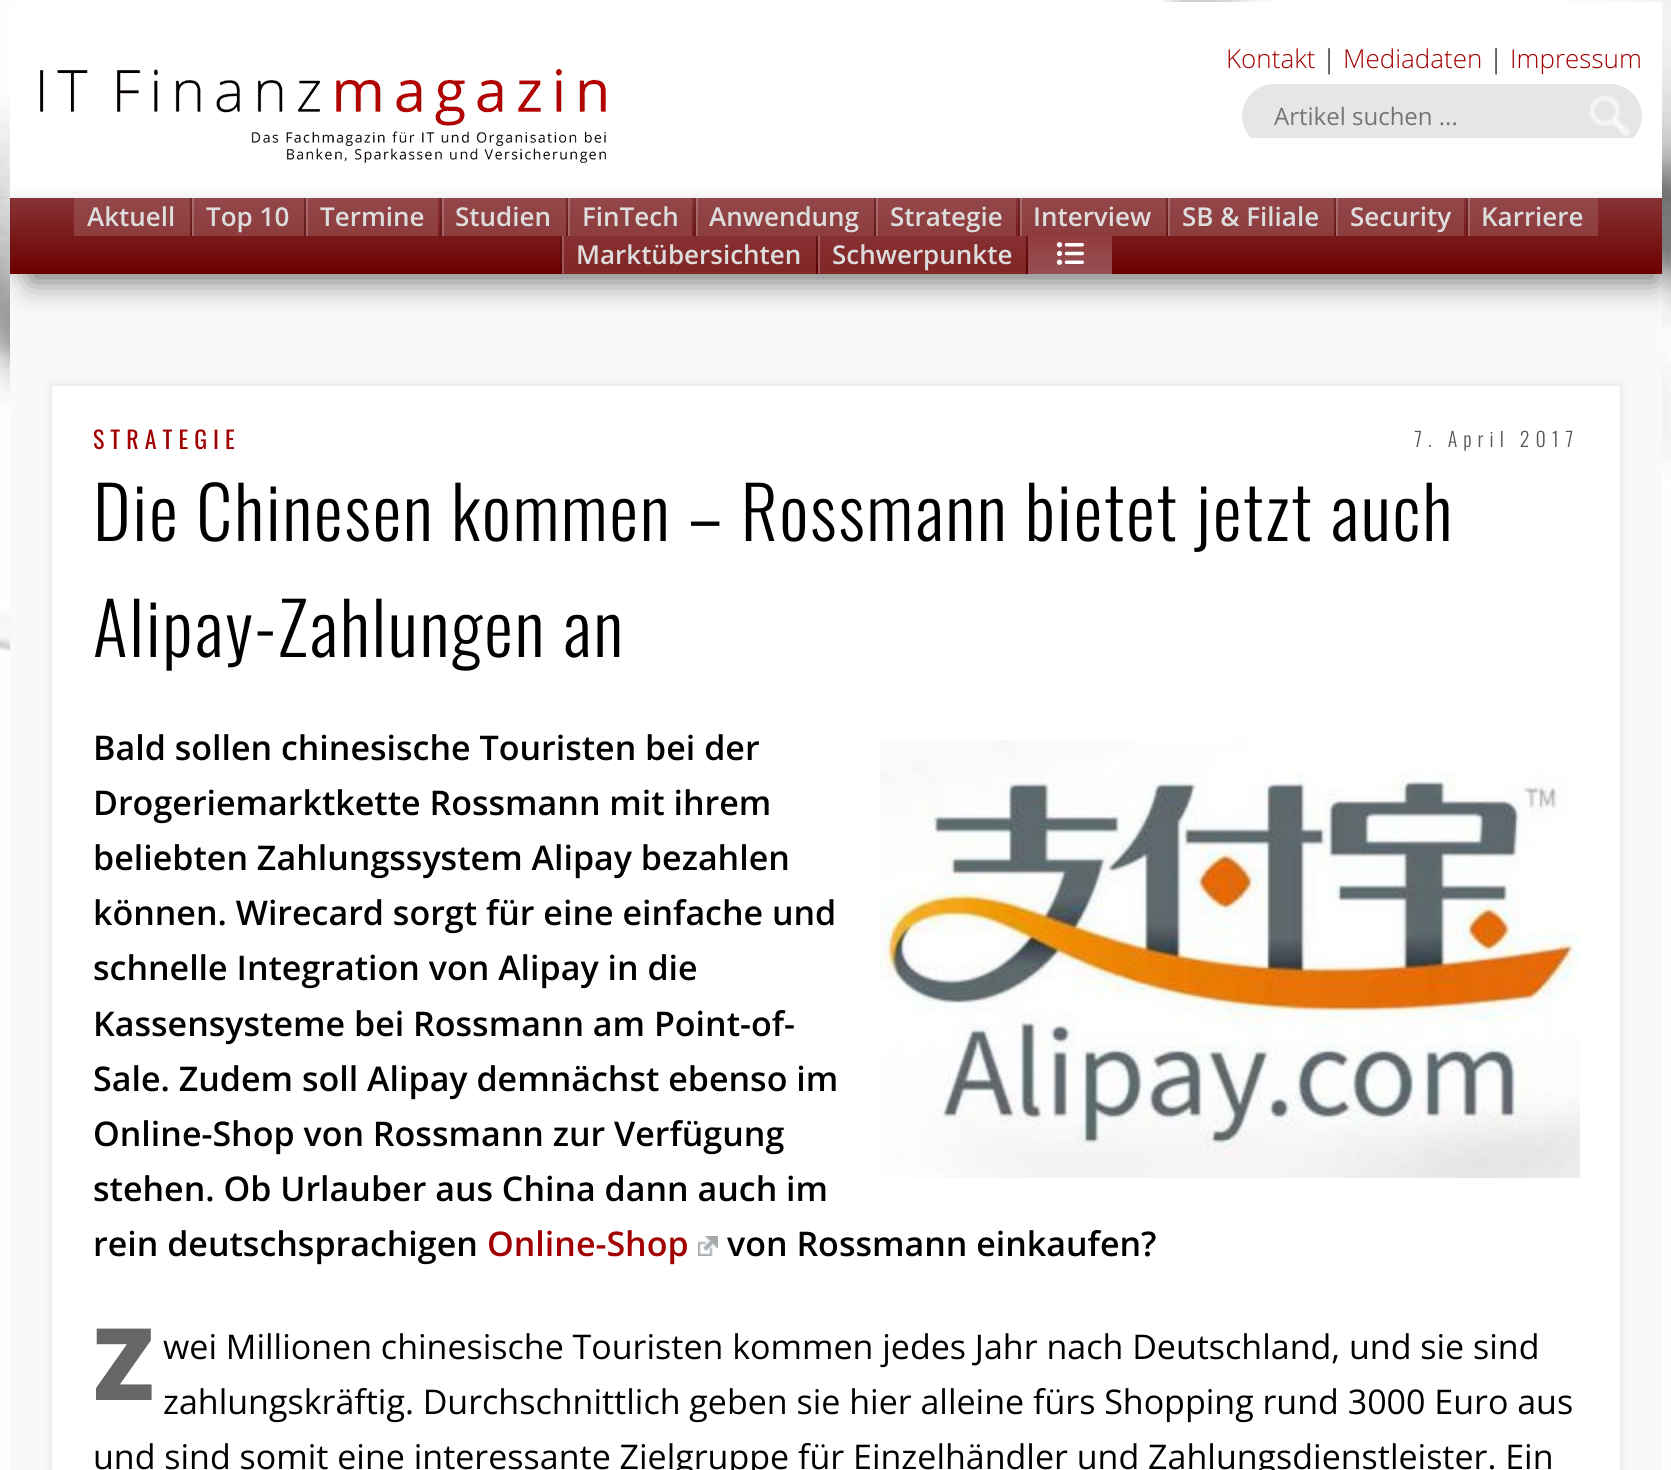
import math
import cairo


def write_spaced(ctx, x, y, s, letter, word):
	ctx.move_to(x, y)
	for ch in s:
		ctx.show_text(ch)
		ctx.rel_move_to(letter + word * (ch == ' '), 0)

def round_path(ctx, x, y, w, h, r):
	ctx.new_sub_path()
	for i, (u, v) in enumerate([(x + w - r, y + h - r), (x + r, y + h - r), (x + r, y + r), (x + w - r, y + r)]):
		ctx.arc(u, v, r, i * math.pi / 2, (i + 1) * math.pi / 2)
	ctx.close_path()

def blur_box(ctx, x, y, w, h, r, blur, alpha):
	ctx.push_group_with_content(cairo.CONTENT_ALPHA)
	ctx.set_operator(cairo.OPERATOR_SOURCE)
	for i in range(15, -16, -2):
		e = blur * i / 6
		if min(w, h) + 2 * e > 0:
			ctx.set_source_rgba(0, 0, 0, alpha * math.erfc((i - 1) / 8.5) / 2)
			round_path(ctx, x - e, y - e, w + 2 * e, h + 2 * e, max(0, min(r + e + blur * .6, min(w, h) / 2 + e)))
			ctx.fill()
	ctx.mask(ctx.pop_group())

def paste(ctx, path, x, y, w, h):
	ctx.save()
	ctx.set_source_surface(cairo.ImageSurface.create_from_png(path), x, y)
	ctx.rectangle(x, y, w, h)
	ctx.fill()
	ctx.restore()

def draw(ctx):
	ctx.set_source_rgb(1, 1, 1)
	ctx.paint()
	paste(ctx, 'media/1.png', 0, 0, 1671, 1470)
	ctx.set_source_rgb(0.973, 0.973, 0.973)
	ctx.rectangle(10, 274, 1652, 1196)
	ctx.fill()
	ctx.set_source_rgb(1, 1, 1)
	ctx.rectangle(10, 2, 1652, 196)
	ctx.fill()
	paste(ctx, 'media/2.png', 40, 69, 566, 94)
	ctx.select_font_face('Open Sans Light')
	ctx.set_font_size(26)
	ctx.set_source_rgb(0.635, 0, 0)
	ctx.move_to(1226, 68)
	ctx.show_text('Kontakt')
	ctx.set_source_rgb(0, 0, 0)
	ctx.move_to(1322, 68)
	ctx.show_text('|')
	ctx.set_source_rgb(0.635, 0, 0)
	ctx.move_to(1343, 68)
	ctx.show_text('Mediadaten')
	ctx.set_source_rgb(0, 0, 0)
	ctx.move_to(1489, 68)
	ctx.show_text('|')
	ctx.set_source_rgb(0.635, 0, 0)
	ctx.move_to(1510, 68)
	ctx.show_text('Impressum')
	ctx.save()
	ctx.rectangle(1002, 18, 660, 120)
	ctx.clip()
	ctx.set_source_rgb(0.902, 0.902, 0.902)
	round_path(ctx, 1242, 84, 400, 64, 32)
	ctx.fill()
	ctx.restore()
	paste(ctx, 'media/3.png', 1590, 96, 40, 40)
	ctx.select_font_face('Open Sans')
	ctx.set_font_size(24)
	ctx.set_source_rgb(0.459, 0.459, 0.459)
	ctx.move_to(1274, 125)
	ctx.show_text('Artikel suchen ...')
	ctx.save()
	ctx.rectangle(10, 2, 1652, 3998)
	ctx.clip()
	ctx.set_source_rgb(0, 0, 0)
	blur_box(ctx, 10, 198, 1652, 76, 0, 7, 0.1)
	blur_box(ctx, 30, 230, 1628, 52, 0, 16, 0.5)
	ctx.restore()
	gradient = cairo.LinearGradient(836, 198, 836, 274)
	gradient.add_color_stop_rgba(0, 0.529, 0.2, 0.208, 1)
	gradient.add_color_stop_rgba(1, 0.424, 0, 0, 1)
	ctx.set_source(gradient)
	ctx.rectangle(10, 198, 1652, 76)
	ctx.fill()
	gradient = cairo.LinearGradient(132, 198, 132, 236)
	gradient.add_color_stop_rgba(0, 1, 1, 1, 0.1)
	gradient.add_color_stop_rgba(1, 1, 1, 1, 0.15)
	ctx.set_source(gradient)
	ctx.rectangle(74, 198, 116, 38)
	ctx.fill()
	ctx.select_font_face('Open Sans SemiBold')
	ctx.set_font_size(26)
	ctx.set_source_rgb(0.867, 0.867, 0.867)
	ctx.move_to(87, 226)
	ctx.show_text('Aktuell')
	ctx.set_source_rgba(1, 1, 1, 0.2)
	ctx.rectangle(192, 198, 2, 38)
	ctx.fill()
	ctx.set_source_rgba(0, 0, 0, 0.15)
	ctx.rectangle(190, 198, 2, 38)
	ctx.fill()
	gradient = cairo.LinearGradient(248, 198, 248, 236)
	gradient.add_color_stop_rgba(0, 1, 1, 1, 0.1)
	gradient.add_color_stop_rgba(1, 1, 1, 1, 0.15)
	ctx.set_source(gradient)
	ctx.rectangle(192, 198, 112, 38)
	ctx.fill()
	ctx.set_source_rgb(0.867, 0.867, 0.867)
	ctx.move_to(206, 226)
	ctx.show_text('Top 10')
	ctx.set_source_rgba(1, 1, 1, 0.2)
	ctx.rectangle(306, 198, 2, 38)
	ctx.fill()
	ctx.set_source_rgba(0, 0, 0, 0.15)
	ctx.rectangle(304, 198, 2, 38)
	ctx.fill()
	gradient = cairo.LinearGradient(372, 198, 372, 236)
	gradient.add_color_stop_rgba(0, 1, 1, 1, 0.1)
	gradient.add_color_stop_rgba(1, 1, 1, 1, 0.15)
	ctx.set_source(gradient)
	ctx.rectangle(306, 198, 132, 38)
	ctx.fill()
	ctx.set_source_rgb(0.867, 0.867, 0.867)
	ctx.move_to(320, 226)
	ctx.show_text('Termine')
	ctx.set_source_rgba(1, 1, 1, 0.2)
	ctx.rectangle(442, 198, 2, 38)
	ctx.fill()
	ctx.set_source_rgba(0, 0, 0, 0.15)
	ctx.rectangle(440, 198, 2, 38)
	ctx.fill()
	gradient = cairo.LinearGradient(504, 198, 504, 236)
	gradient.add_color_stop_rgba(0, 1, 1, 1, 0.1)
	gradient.add_color_stop_rgba(1, 1, 1, 1, 0.15)
	ctx.set_source(gradient)
	ctx.rectangle(442, 198, 124, 38)
	ctx.fill()
	ctx.set_source_rgb(0.867, 0.867, 0.867)
	ctx.move_to(455, 226)
	ctx.show_text('Studien')
	ctx.set_source_rgba(1, 1, 1, 0.2)
	ctx.rectangle(568, 198, 2, 38)
	ctx.fill()
	ctx.set_source_rgba(0, 0, 0, 0.15)
	ctx.rectangle(566, 198, 2, 38)
	ctx.fill()
	gradient = cairo.LinearGradient(630, 198, 630, 236)
	gradient.add_color_stop_rgba(0, 1, 1, 1, 0.1)
	gradient.add_color_stop_rgba(1, 1, 1, 1, 0.15)
	ctx.set_source(gradient)
	ctx.rectangle(568, 198, 124, 38)
	ctx.fill()
	ctx.set_source_rgb(0.867, 0.867, 0.867)
	ctx.move_to(582, 226)
	ctx.show_text('FinTech')
	ctx.set_source_rgba(1, 1, 1, 0.2)
	ctx.rectangle(696, 198, 2, 38)
	ctx.fill()
	ctx.set_source_rgba(0, 0, 0, 0.15)
	ctx.rectangle(694, 198, 2, 38)
	ctx.fill()
	gradient = cairo.LinearGradient(785, 198, 785, 236)
	gradient.add_color_stop_rgba(0, 1, 1, 1, 0.1)
	gradient.add_color_stop_rgba(1, 1, 1, 1, 0.15)
	ctx.set_source(gradient)
	ctx.rectangle(696, 198, 178, 38)
	ctx.fill()
	ctx.set_source_rgb(0.867, 0.867, 0.867)
	ctx.move_to(709, 226)
	ctx.show_text('Anwendung')
	ctx.set_source_rgba(1, 1, 1, 0.2)
	ctx.rectangle(876, 198, 2, 38)
	ctx.fill()
	ctx.set_source_rgba(0, 0, 0, 0.15)
	ctx.rectangle(874, 198, 2, 38)
	ctx.fill()
	gradient = cairo.LinearGradient(946, 198, 946, 236)
	gradient.add_color_stop_rgba(0, 1, 1, 1, 0.1)
	gradient.add_color_stop_rgba(1, 1, 1, 1, 0.15)
	ctx.set_source(gradient)
	ctx.rectangle(876, 198, 140, 38)
	ctx.fill()
	ctx.set_source_rgb(0.867, 0.867, 0.867)
	ctx.move_to(890, 226)
	ctx.show_text('Strategie')
	ctx.set_source_rgba(1, 1, 1, 0.2)
	ctx.rectangle(1020, 198, 2, 38)
	ctx.fill()
	ctx.set_source_rgba(0, 0, 0, 0.15)
	ctx.rectangle(1018, 198, 2, 38)
	ctx.fill()
	gradient = cairo.LinearGradient(1093, 198, 1093, 236)
	gradient.add_color_stop_rgba(0, 1, 1, 1, 0.1)
	gradient.add_color_stop_rgba(1, 1, 1, 1, 0.15)
	ctx.set_source(gradient)
	ctx.rectangle(1020, 198, 146, 38)
	ctx.fill()
	ctx.set_source_rgb(0.867, 0.867, 0.867)
	ctx.move_to(1033, 226)
	ctx.show_text('Interview')
	ctx.set_source_rgba(1, 1, 1, 0.2)
	ctx.rectangle(1168, 198, 2, 38)
	ctx.fill()
	ctx.set_source_rgba(0, 0, 0, 0.15)
	ctx.rectangle(1166, 198, 2, 38)
	ctx.fill()
	gradient = cairo.LinearGradient(1251, 198, 1251, 236)
	gradient.add_color_stop_rgba(0, 1, 1, 1, 0.1)
	gradient.add_color_stop_rgba(1, 1, 1, 1, 0.15)
	ctx.set_source(gradient)
	ctx.rectangle(1168, 198, 166, 38)
	ctx.fill()
	ctx.set_source_rgb(0.867, 0.867, 0.867)
	ctx.move_to(1182, 226)
	ctx.show_text('SB & Filiale')
	ctx.set_source_rgba(1, 1, 1, 0.2)
	ctx.rectangle(1336, 198, 2, 38)
	ctx.fill()
	ctx.set_source_rgba(0, 0, 0, 0.15)
	ctx.rectangle(1334, 198, 2, 38)
	ctx.fill()
	gradient = cairo.LinearGradient(1400, 198, 1400, 236)
	gradient.add_color_stop_rgba(0, 1, 1, 1, 0.1)
	gradient.add_color_stop_rgba(1, 1, 1, 1, 0.15)
	ctx.set_source(gradient)
	ctx.rectangle(1336, 198, 128, 38)
	ctx.fill()
	ctx.set_source_rgb(0.867, 0.867, 0.867)
	ctx.move_to(1350, 226)
	ctx.show_text('Security')
	ctx.set_source_rgba(1, 1, 1, 0.2)
	ctx.rectangle(1468, 198, 2, 38)
	ctx.fill()
	ctx.set_source_rgba(0, 0, 0, 0.15)
	ctx.rectangle(1466, 198, 2, 38)
	ctx.fill()
	gradient = cairo.LinearGradient(1533, 198, 1533, 236)
	gradient.add_color_stop_rgba(0, 1, 1, 1, 0.1)
	gradient.add_color_stop_rgba(1, 1, 1, 1, 0.15)
	ctx.set_source(gradient)
	ctx.rectangle(1468, 198, 130, 38)
	ctx.fill()
	ctx.set_source_rgb(0.867, 0.867, 0.867)
	ctx.move_to(1481, 226)
	ctx.show_text('Karriere')
	ctx.set_source_rgba(1, 1, 1, 0.2)
	ctx.rectangle(562, 236, 2, 38)
	ctx.fill()
	ctx.set_source_rgba(0, 0, 0, 0.15)
	ctx.rectangle(560, 236, 2, 38)
	ctx.fill()
	gradient = cairo.LinearGradient(689, 236, 689, 274)
	gradient.add_color_stop_rgba(0, 1, 1, 1, 0.1)
	gradient.add_color_stop_rgba(1, 1, 1, 1, 0.15)
	ctx.set_source(gradient)
	ctx.rectangle(562, 236, 254, 38)
	ctx.fill()
	ctx.set_source_rgb(0.867, 0.867, 0.867)
	ctx.move_to(576, 264)
	ctx.show_text('Marktübersichten')
	ctx.set_source_rgba(1, 1, 1, 0.2)
	ctx.rectangle(818, 236, 2, 38)
	ctx.fill()
	ctx.set_source_rgba(0, 0, 0, 0.15)
	ctx.rectangle(816, 236, 2, 38)
	ctx.fill()
	gradient = cairo.LinearGradient(922, 236, 922, 274)
	gradient.add_color_stop_rgba(0, 1, 1, 1, 0.1)
	gradient.add_color_stop_rgba(1, 1, 1, 1, 0.15)
	ctx.set_source(gradient)
	ctx.rectangle(818, 236, 208, 38)
	ctx.fill()
	ctx.set_source_rgb(0.867, 0.867, 0.867)
	ctx.move_to(832, 264)
	ctx.show_text('Schwerpunkte')
	ctx.set_source_rgba(0, 0, 0, 0.15)
	ctx.rectangle(1026, 236, 2, 38)
	ctx.fill()
	gradient = cairo.LinearGradient(1070, 236, 1070, 274)
	gradient.add_color_stop_rgba(0, 0.576, 0.235, 0.243, 1)
	gradient.add_color_stop_rgba(1, 0.588, 0.314, 0.329, 1)
	ctx.set_source(gradient)
	ctx.rectangle(1028, 236, 84, 38)
	ctx.fill()
	paste(ctx, 'media/4.png', 1056, 242, 28, 23)
	ctx.set_source_rgb(0, 0, 0)
	blur_box(ctx, 52, 386, 1568, 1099, 0, 5, 0.1)
	ctx.set_source_rgb(1, 1, 1)
	ctx.rectangle(52, 386, 1568, 1084)
	ctx.fill()
	ctx.select_font_face('Oswald')
	ctx.set_font_size(24)
	ctx.set_source_rgb(0.635, 0, 0)
	write_spaced(ctx, 93, 449, 'STRATEGIE', 6, 0)
	ctx.select_font_face('Oswald Light')
	ctx.set_font_size(20)
	ctx.set_source_rgb(0.333, 0.333, 0.333)
	write_spaced(ctx, 1414, 447, '7. April 2017', 6, 0)
	ctx.set_font_size(72)
	ctx.set_source_rgb(0, 0, 0)
	write_spaced(ctx, 93, 541, 'Die Chinesen kommen – Rossmann bietet jetzt auch', 2, 0)
	write_spaced(ctx, 93, 657, 'Alipay-Zahlungen an', 2, 0)
	ctx.select_font_face('Open Sans SemiBold')
	ctx.set_font_size(34)
	ctx.move_to(93, 760)
	ctx.show_text('Bald sollen chinesische Touristen bei der')
	paste(ctx, 'media/5.png', 880, 740, 700, 438)
	for x, y, s in [
		(93, 815, 'Drogeriemarktkette Rossmann mit ihrem'),
		(93, 870, 'beliebten Zahlungssystem Alipay bezahlen'),
		(93, 925, 'können. Wirecard sorgt für eine einfache und'),
		(93, 980, 'schnelle Integration von Alipay in die'),
		(93, 1036, 'Kassensysteme bei Rossmann am Point-of-'),
		(93, 1091, 'Sale. Zudem soll Alipay demnächst ebenso im'),
		(93, 1146, 'Online-Shop von Rossmann zur Verfügung'),
		(93, 1201, 'stehen. Ob Urlauber aus China dann auch im'),
		(93, 1256, 'rein deutschsprachigen'),
	]:
		ctx.move_to(x, y)
		ctx.show_text(s)
	ctx.set_source_rgb(0.635, 0, 0)
	ctx.move_to(487, 1256)
	ctx.show_text('Online-Shop')
	paste(ctx, 'media/6.png', 698, 1236, 20, 20)
	ctx.set_source_rgb(0, 0, 0)
	ctx.move_to(727, 1256)
	ctx.show_text('von Rossmann einkaufen?')
	ctx.select_font_face('Noto Sans Black')
	ctx.set_font_size(100)
	ctx.set_source_rgb(0.4, 0.4, 0.4)
	ctx.move_to(93, 1400)
	ctx.show_text('Z')
	ctx.select_font_face('Open Sans')
	ctx.set_font_size(34)
	ctx.set_source_rgb(0, 0, 0)
	for x, y, s in [
		(163, 1359, 'wei Millionen chinesische Touristen kommen jedes Jahr nach Deutschland, und sie sind'),
		(163, 1414, 'zahlungskräftig. Durchschnittlich geben sie hier alleine fürs Shopping rund 3000 Euro aus'),
		(93, 1469, 'und sind somit eine interessante Zielgruppe für Einzelhändler und Zahlungsdienstleister. Ein'),
	]:
		ctx.move_to(x, y)
		ctx.show_text(s)


surface = cairo.ImageSurface(cairo.FORMAT_RGB24, 1671, 1470)
ctx = cairo.Context(surface)
options = cairo.FontOptions()
options.set_hint_metrics(cairo.HINT_METRICS_OFF)
options.set_hint_style(cairo.HINT_STYLE_NONE)
ctx.set_font_options(options)
ctx.set_miter_limit(4)
draw(ctx)
surface.write_to_png('image.png')
